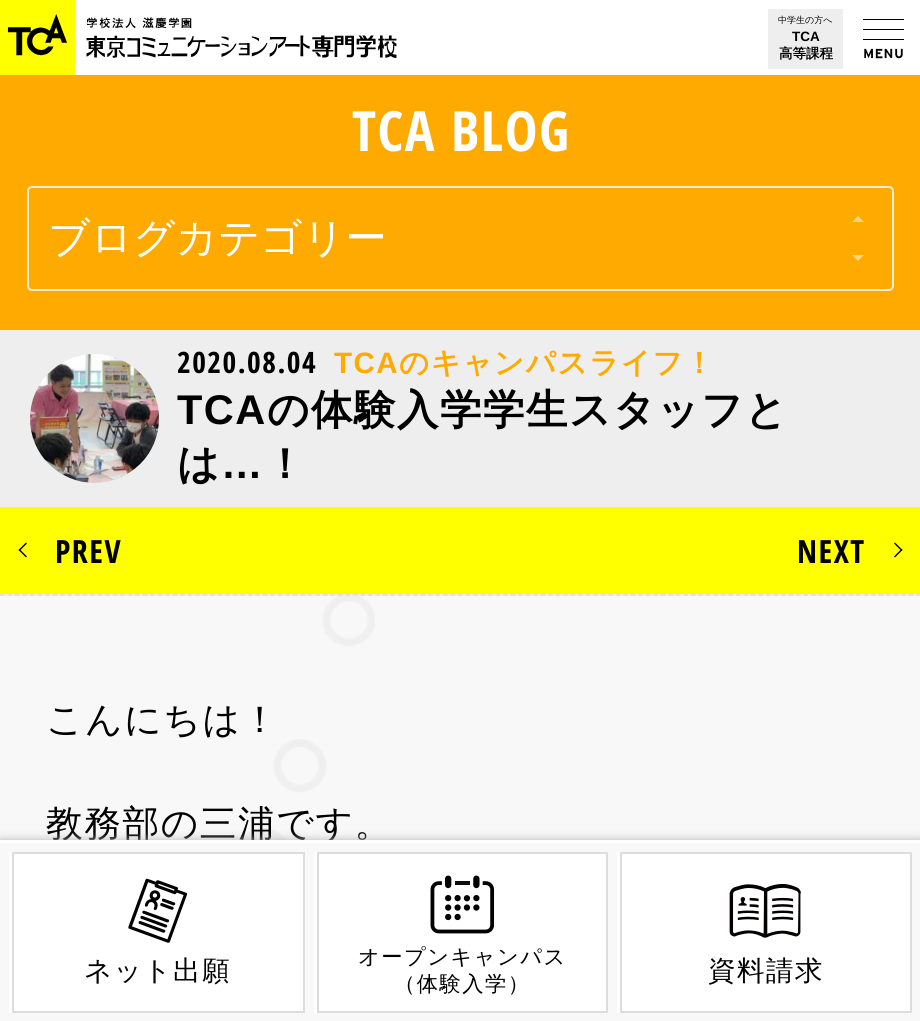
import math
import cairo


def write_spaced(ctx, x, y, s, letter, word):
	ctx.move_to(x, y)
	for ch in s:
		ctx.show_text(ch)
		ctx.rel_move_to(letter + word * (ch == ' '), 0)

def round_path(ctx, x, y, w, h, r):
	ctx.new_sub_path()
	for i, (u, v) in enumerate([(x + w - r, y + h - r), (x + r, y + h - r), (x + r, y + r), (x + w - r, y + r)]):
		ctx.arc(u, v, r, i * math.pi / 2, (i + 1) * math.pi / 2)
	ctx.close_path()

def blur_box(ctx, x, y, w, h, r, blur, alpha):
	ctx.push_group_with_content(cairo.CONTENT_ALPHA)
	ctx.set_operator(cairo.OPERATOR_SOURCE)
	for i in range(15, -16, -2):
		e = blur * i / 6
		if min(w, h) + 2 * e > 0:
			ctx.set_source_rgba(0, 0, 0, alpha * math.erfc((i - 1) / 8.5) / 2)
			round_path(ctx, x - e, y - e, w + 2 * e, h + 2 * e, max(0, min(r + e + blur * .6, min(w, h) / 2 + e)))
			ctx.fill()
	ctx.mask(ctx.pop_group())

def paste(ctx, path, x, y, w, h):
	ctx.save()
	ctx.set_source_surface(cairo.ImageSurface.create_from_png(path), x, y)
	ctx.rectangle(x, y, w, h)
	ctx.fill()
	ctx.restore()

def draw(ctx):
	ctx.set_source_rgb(0.969, 0.969, 0.969)
	ctx.paint()
	ctx.set_source_rgb(1, 1, 1)
	ctx.rectangle(75, 0, 845, 75)
	ctx.fill()
	paste(ctx, 'media/1.png', 0, 0, 397, 75)
	ctx.set_source_rgb(0.933, 0.933, 0.933)
	ctx.rectangle(768, 9, 75, 60)
	ctx.fill()
	ctx.select_font_face('WenQuanYi Zen Hei Medium')
	ctx.set_font_size(9)
	ctx.set_source_rgb(0, 0, 0)
	ctx.move_to(778, 23)
	ctx.show_text('中学生の方へ')
	ctx.select_font_face('Liberation Sans', cairo.FONT_SLANT_NORMAL, cairo.FONT_WEIGHT_BOLD)
	ctx.set_font_size(13.5)
	ctx.move_to(792, 41)
	ctx.show_text('TCA')
	ctx.select_font_face('WenQuanYi Zen Hei', cairo.FONT_SLANT_NORMAL, cairo.FONT_WEIGHT_BOLD)
	ctx.move_to(779, 58)
	ctx.show_text('高等課程')
	paste(ctx, 'media/2.png', 863, 19, 41, 40)
	ctx.set_source_rgb(1, 0.667, 0)
	ctx.rectangle(0, 75, 920, 255)
	ctx.fill()
	ctx.select_font_face('Open Sans Condensed', cairo.FONT_SLANT_NORMAL, cairo.FONT_WEIGHT_BOLD)
	ctx.set_font_size(55.5)
	ctx.set_source_rgb(1, 1, 1)
	write_spaced(ctx, 352, 151, 'TCA BLOG', 1.5, 0)
	round_path(ctx, 28, 187, 865, 103, 4)
	ctx.set_source_rgb(1, 0.933, 0.8)
	ctx.stroke()
	ctx.select_font_face('WenQuanYi Zen Hei Medium')
	ctx.set_font_size(41.5)
	ctx.set_source_rgb(1, 1, 1)
	ctx.move_to(48, 252)
	ctx.show_text('ブログカテゴリー')
	ctx.set_source_rgb(1, 0.835, 0.502)
	ctx.new_path()
	ctx.move_to(864, 222)
	ctx.line_to(852, 222)
	ctx.line_to(858, 216)
	ctx.close_path()
	ctx.move_to(852, 255)
	ctx.line_to(864, 255)
	ctx.line_to(858, 261)
	ctx.close_path()
	ctx.fill()
	ctx.set_source_rgb(0.933, 0.933, 0.933)
	ctx.rectangle(0, 330, 920, 266)
	ctx.fill()
	ctx.new_path()
	ctx.move_to(0, 595)
	ctx.line_to(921, 595)
	ctx.set_source_rgb(0.867, 0.867, 0.867)
	ctx.set_line_width(1.5)
	ctx.set_dash([4.5, 3.01])
	ctx.stroke()
	paste(ctx, 'media/3.png', 30, 354, 129, 129)
	ctx.select_font_face('Open Sans Condensed', cairo.FONT_SLANT_NORMAL, cairo.FONT_WEIGHT_BOLD)
	ctx.set_font_size(29.5)
	ctx.set_source_rgb(0, 0, 0)
	write_spaced(ctx, 177, 373, '2020.08.04', 1.5, 0)
	ctx.select_font_face('Liberation Sans', cairo.FONT_SLANT_NORMAL, cairo.FONT_WEIGHT_BOLD)
	ctx.set_source_rgb(1, 0.667, 0)
	write_spaced(ctx, 334, 373, 'TCA', 1.5, 0)
	ctx.select_font_face('WenQuanYi Zen Hei', cairo.FONT_SLANT_NORMAL, cairo.FONT_WEIGHT_BOLD)
	write_spaced(ctx, 399, 373, 'のキャンパスライフ！', 1.5, 0)
	ctx.select_font_face('Liberation Sans', cairo.FONT_SLANT_NORMAL, cairo.FONT_WEIGHT_BOLD)
	ctx.set_font_size(41.5)
	ctx.set_source_rgb(0, 0, 0)
	write_spaced(ctx, 177, 424, 'TCA', 1.5, 0)
	ctx.select_font_face('WenQuanYi Zen Hei', cairo.FONT_SLANT_NORMAL, cairo.FONT_WEIGHT_BOLD)
	write_spaced(ctx, 267, 424, 'の体験入学学生スタッフと', 1.5, 0)
	write_spaced(ctx, 177, 478, 'は', 1.5, 0)
	ctx.select_font_face('Liberation Sans', cairo.FONT_SLANT_NORMAL, cairo.FONT_WEIGHT_BOLD)
	write_spaced(ctx, 221, 478, '…', 1.5, 0)
	ctx.select_font_face('WenQuanYi Zen Hei', cairo.FONT_SLANT_NORMAL, cairo.FONT_WEIGHT_BOLD)
	write_spaced(ctx, 264, 478, '！', 1.5, 0)
	ctx.set_source_rgb(1, 1, 0)
	ctx.rectangle(0, 507, 920, 87)
	ctx.fill()
	ctx.set_source_rgb(0, 0, 0)
	ctx.new_path()
	ctx.move_to(27, 556.5)
	ctx.line_to(26, 557.5)
	ctx.line_to(18.5, 550)
	ctx.line_to(19.5, 549)
	ctx.close_path()
	ctx.fill()
	ctx.new_path()
	ctx.move_to(27, 543.5)
	ctx.line_to(19.5, 551)
	ctx.line_to(18.5, 550)
	ctx.line_to(26, 542.5)
	ctx.close_path()
	ctx.fill()
	ctx.select_font_face('Open Sans Condensed', cairo.FONT_SLANT_NORMAL, cairo.FONT_WEIGHT_BOLD)
	ctx.set_font_size(32)
	write_spaced(ctx, 55, 563, 'PREV', 1.5, 0)
	write_spaced(ctx, 797, 563, 'NEXT', 1.5, 0)
	ctx.new_path()
	ctx.move_to(894, 543.5)
	ctx.line_to(895, 542.5)
	ctx.line_to(902.5, 550)
	ctx.line_to(901.5, 551)
	ctx.close_path()
	ctx.fill()
	ctx.new_path()
	ctx.move_to(894, 556.5)
	ctx.line_to(901.5, 549)
	ctx.line_to(902.5, 550)
	ctx.line_to(895, 557.5)
	ctx.close_path()
	ctx.fill()
	paste(ctx, 'media/4.png', 240, 596, 137, 244)
	ctx.select_font_face('WenQuanYi Zen Hei Medium')
	ctx.set_font_size(36.75)
	write_spaced(ctx, 46, 732, 'こんにちは！', 1.5, 0)
	write_spaced(ctx, 46, 836, '教務部の三浦です。', 1.5, 0)
	ctx.set_source_rgb(0.702, 0.702, 0.702)
	blur_box(ctx, 0, 840, 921, 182, 0, 4.5, 1)
	ctx.set_source_rgb(0.969, 0.969, 0.969)
	ctx.rectangle(0, 843, 920, 178)
	ctx.fill()
	ctx.set_source_rgb(1, 1, 1)
	ctx.rectangle(0, 840, 920, 3)
	ctx.rectangle(9, 852, 3, 161)
	ctx.fill()
	ctx.rectangle(13, 853, 291, 159)
	ctx.fill_preserve()
	ctx.set_source_rgb(0.867, 0.867, 0.867)
	ctx.set_line_width(2)
	ctx.set_dash([])
	ctx.stroke()
	paste(ctx, 'media/5.png', 128, 878, 60, 65)
	ctx.set_font_size(27.5)
	ctx.set_source_rgb(0, 0, 0)
	write_spaced(ctx, 84, 980, 'ネット出願', 1.5, 0)
	ctx.set_source_rgb(1, 1, 1)
	ctx.rectangle(314, 852, 3, 161)
	ctx.fill()
	ctx.rectangle(318, 853, 289, 159)
	ctx.fill_preserve()
	ctx.set_source_rgb(0.867, 0.867, 0.867)
	ctx.stroke()
	paste(ctx, 'media/6.png', 430, 875, 65, 59)
	ctx.set_font_size(21.25)
	ctx.set_source_rgb(0, 0, 0)
	write_spaced(ctx, 358, 964, 'オープンキャンパス', 1.5, 0)
	write_spaced(ctx, 394, 991, '（体験入学）', 1.5, 0)
	ctx.set_source_rgb(1, 1, 1)
	ctx.rectangle(617, 852, 3, 161)
	ctx.fill()
	ctx.rectangle(621, 853, 290, 159)
	ctx.fill_preserve()
	ctx.set_source_rgb(0.867, 0.867, 0.867)
	ctx.stroke()
	paste(ctx, 'media/7.png', 729, 883, 72, 55)
	ctx.set_font_size(27.5)
	ctx.set_source_rgb(0, 0, 0)
	write_spaced(ctx, 708, 980, '資料請求', 1.5, 0)


surface = cairo.ImageSurface(cairo.FORMAT_RGB24, 920, 1021)
ctx = cairo.Context(surface)
options = cairo.FontOptions()
options.set_hint_metrics(cairo.HINT_METRICS_OFF)
options.set_hint_style(cairo.HINT_STYLE_NONE)
ctx.set_font_options(options)
ctx.set_miter_limit(4)
draw(ctx)
surface.write_to_png('image.png')
